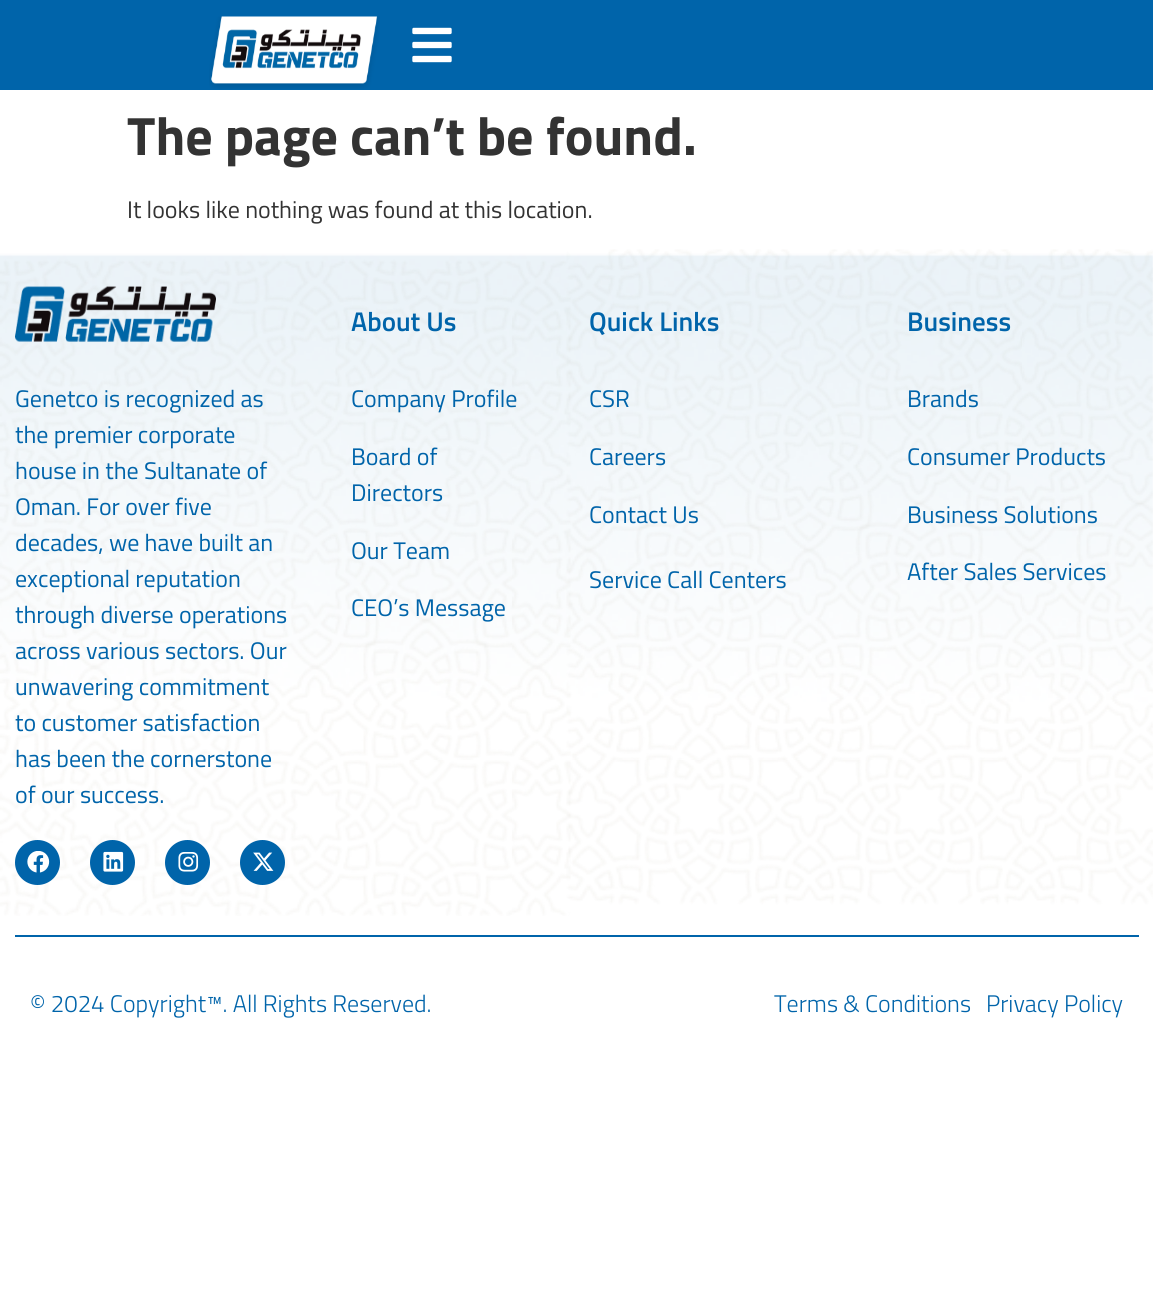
import math
import cairo


def paste(ctx, path, x, y, w, h):
	ctx.save()
	ctx.set_source_surface(cairo.ImageSurface.create_from_png(path), x, y)
	ctx.rectangle(x, y, w, h)
	ctx.fill()
	ctx.restore()

def draw(ctx):
	ctx.set_source_rgb(1, 1, 1)
	ctx.paint()
	ctx.set_source_rgb(0, 0.392, 0.667)
	ctx.rectangle(0, 0, 1153, 90)
	ctx.fill()
	paste(ctx, 'media/1.png', 209, 16, 171, 73)
	paste(ctx, 'media/2.png', 412, 27, 40, 36)
	ctx.select_font_face('Titillium Web', cairo.FONT_SLANT_NORMAL, cairo.FONT_WEIGHT_BOLD)
	ctx.set_font_size(54)
	ctx.set_source_rgb(0.2, 0.2, 0.2)
	ctx.move_to(127, 155)
	ctx.show_text('The page can’t be found.')
	ctx.select_font_face('Titillium Web')
	ctx.set_font_size(24)
	ctx.move_to(127, 218)
	ctx.show_text('It looks like nothing was found at this location.')
	paste(ctx, 'media/3.png', 0, 249, 1153, 667)
	paste(ctx, 'media/4.png', 15, 286, 201, 56)
	ctx.set_source_rgb(0, 0.392, 0.667)
	for x, y, s in [
		(15, 407, 'Genetco is recognized as'),
		(15, 443, 'the premier corporate'),
		(15, 479, 'house in the Sultanate of'),
		(15, 515, 'Oman. For over five'),
		(15, 551, 'decades, we have built an'),
		(15, 587, 'exceptional reputation'),
		(15, 623, 'through diverse operations'),
		(15, 659, 'across various sectors. Our'),
		(15, 695, 'unwavering commitment'),
		(15, 731, 'to customer satisfaction'),
		(15, 767, 'has been the cornerstone'),
		(15, 803, 'of our success.'),
	]:
		ctx.move_to(x, y)
		ctx.show_text(s)
	ctx.new_path()
	ctx.arc(37.5, 862.5, 22.5, 0, 2 * math.pi)
	ctx.fill()
	paste(ctx, 'media/5.png', 27, 851, 23, 22)
	ctx.arc(112.5, 862.5, 22.5, 0, 2 * math.pi)
	ctx.fill()
	paste(ctx, 'media/6.png', 103, 851, 21, 21)
	ctx.arc(187.5, 862.5, 22.5, 0, 2 * math.pi)
	ctx.fill()
	paste(ctx, 'media/7.png', 178, 852, 21, 20)
	ctx.arc(262.5, 862.5, 22.5, 0, 2 * math.pi)
	ctx.fill()
	paste(ctx, 'media/8.png', 253, 852, 21, 19)
	ctx.select_font_face('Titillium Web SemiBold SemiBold')
	ctx.set_font_size(27)
	ctx.move_to(351, 331)
	ctx.show_text('About Us')
	ctx.select_font_face('Titillium Web')
	ctx.set_font_size(24)
	for x, y, s in [
		(351, 407, 'Company Profile'),
		(351, 465, 'Board of'),
		(351, 501, 'Directors'),
		(351, 559, 'Our Team'),
		(351, 616, 'CEO’s Message'),
	]:
		ctx.move_to(x, y)
		ctx.show_text(s)
	ctx.select_font_face('Titillium Web SemiBold SemiBold')
	ctx.set_font_size(27)
	ctx.move_to(589, 331)
	ctx.show_text('Quick Links')
	ctx.select_font_face('Titillium Web')
	ctx.set_font_size(24)
	for x, y, s in [
		(589, 407, 'CSR'),
		(589, 465, 'Careers'),
		(589, 523, 'Contact Us'),
		(589, 588, 'Service Call Centers'),
	]:
		ctx.move_to(x, y)
		ctx.show_text(s)
	ctx.select_font_face('Titillium Web SemiBold SemiBold')
	ctx.set_font_size(27)
	ctx.move_to(907, 331)
	ctx.show_text('Business')
	ctx.select_font_face('Titillium Web')
	ctx.set_font_size(24)
	for x, y, s in [
		(907, 407, 'Brands'),
		(907, 465, 'Consumer Products'),
		(907, 523, 'Business Solutions'),
		(907, 580, 'After Sales Services'),
	]:
		ctx.move_to(x, y)
		ctx.show_text(s)
	ctx.rectangle(15, 935, 1124, 2)
	ctx.fill()
	ctx.select_font_face('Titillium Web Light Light')
	for x, y, s in [
		(30, 1012, '© 2024 Copyright™. All Rights Reserved.'),
		(774, 1012, 'Terms & Conditions'),
		(986, 1012, 'Privacy Policy'),
	]:
		ctx.move_to(x, y)
		ctx.show_text(s)


surface = cairo.ImageSurface(cairo.FORMAT_RGB24, 1153, 1302)
ctx = cairo.Context(surface)
options = cairo.FontOptions()
options.set_hint_metrics(cairo.HINT_METRICS_OFF)
options.set_hint_style(cairo.HINT_STYLE_NONE)
ctx.set_font_options(options)
ctx.set_miter_limit(4)
draw(ctx)
surface.write_to_png('image.png')
